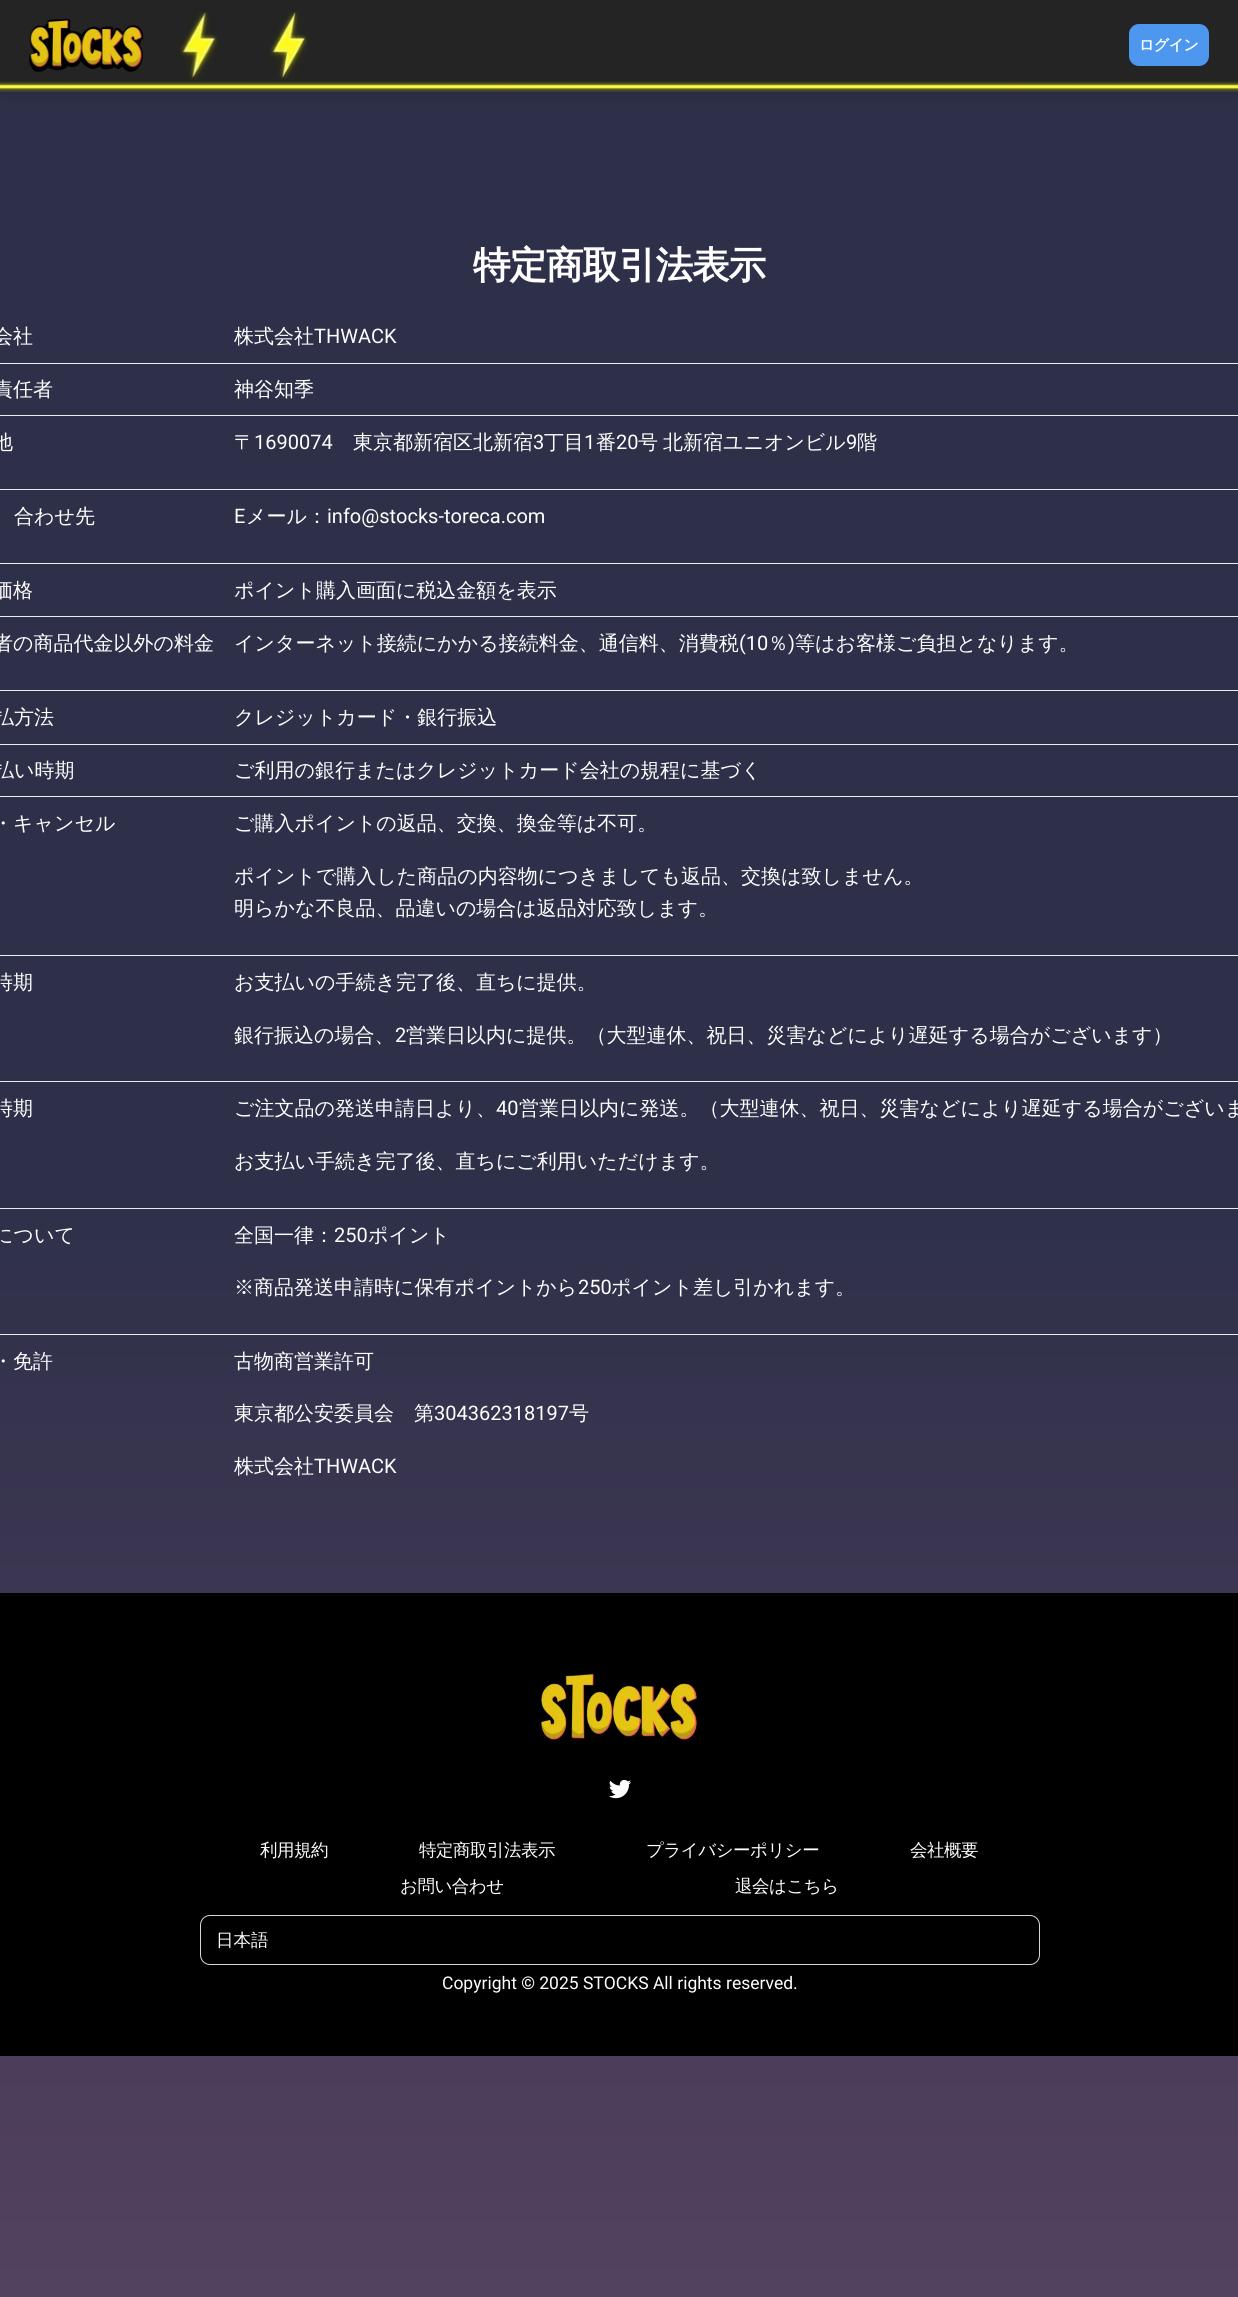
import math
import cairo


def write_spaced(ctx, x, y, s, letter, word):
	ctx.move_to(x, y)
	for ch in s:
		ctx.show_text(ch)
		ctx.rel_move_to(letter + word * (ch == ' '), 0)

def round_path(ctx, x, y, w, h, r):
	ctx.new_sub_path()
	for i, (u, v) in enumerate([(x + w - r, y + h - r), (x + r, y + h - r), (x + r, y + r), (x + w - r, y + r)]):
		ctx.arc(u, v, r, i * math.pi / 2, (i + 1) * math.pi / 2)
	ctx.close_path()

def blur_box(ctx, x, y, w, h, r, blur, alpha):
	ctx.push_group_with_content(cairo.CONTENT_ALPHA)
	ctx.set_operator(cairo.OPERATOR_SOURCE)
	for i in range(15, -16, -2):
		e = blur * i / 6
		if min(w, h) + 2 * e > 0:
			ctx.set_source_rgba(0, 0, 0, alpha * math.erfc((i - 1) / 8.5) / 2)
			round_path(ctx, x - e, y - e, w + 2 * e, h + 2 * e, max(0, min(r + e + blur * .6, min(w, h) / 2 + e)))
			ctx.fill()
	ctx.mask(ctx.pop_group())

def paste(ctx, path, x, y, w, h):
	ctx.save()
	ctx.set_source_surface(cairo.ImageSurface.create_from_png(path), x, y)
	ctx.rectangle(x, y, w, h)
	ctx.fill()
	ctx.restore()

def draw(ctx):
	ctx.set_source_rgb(1, 1, 1)
	ctx.paint()
	gradient = cairo.LinearGradient(619, 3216, 619, 0)
	gradient.add_color_stop_rgba(0, 0.447, 0.31, 0.451, 1)
	gradient.add_color_stop_rgba(0.63, 0.18, 0.188, 0.286, 1)
	ctx.set_source(gradient)
	ctx.rectangle(0, 90, 1238, 2207)
	ctx.fill()
	ctx.set_source_rgb(0, 0, 0)
	blur_box(ctx, 0, 3, 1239, 90, 0, 7.5, 0.16)
	ctx.set_source_rgb(0.141, 0.141, 0.141)
	ctx.rectangle(0, 0, 1238, 90)
	ctx.fill()
	paste(ctx, 'media/1.png', 29, 18, 115, 54)
	paste(ctx, 'media/2.png', 180, 11, 38, 69)
	paste(ctx, 'media/3.png', 270, 11, 38, 69)
	ctx.set_source_rgb(0.302, 0.596, 0.933)
	round_path(ctx, 1129, 24, 80, 42, 10)
	ctx.fill()
	ctx.select_font_face('WenQuanYi Zen Hei', cairo.FONT_SLANT_NORMAL, cairo.FONT_WEIGHT_BOLD)
	ctx.set_font_size(15)
	ctx.set_source_rgb(1, 1, 1)
	write_spaced(ctx, 1139, 50, 'ログイン', -0.5, 0)
	paste(ctx, 'media/4.png', 0, 81, 1238, 12)
	ctx.set_font_size(37.5)
	write_spaced(ctx, 473, 278, '特定商取引法表示', -1, 0)
	ctx.select_font_face('WenQuanYi Zen Hei Medium')
	ctx.set_font_size(20)
	ctx.move_to(-7, 343)
	ctx.show_text('会社')
	ctx.set_source_rgb(0.914, 0.925, 0.937)
	ctx.rectangle(0, 363, 1238, 1)
	ctx.fill()
	ctx.set_source_rgb(1, 1, 1)
	ctx.move_to(234, 343)
	ctx.show_text('株式会社')
	ctx.select_font_face('Roboto')
	ctx.move_to(314, 343)
	ctx.show_text('THWACK')
	ctx.select_font_face('WenQuanYi Zen Hei Medium')
	ctx.move_to(-7, 396)
	ctx.show_text('責任者')
	ctx.set_source_rgb(0.914, 0.925, 0.937)
	ctx.rectangle(0, 415, 1238, 1)
	ctx.fill()
	ctx.set_source_rgb(1, 1, 1)
	ctx.move_to(234, 396)
	ctx.show_text('神谷知季')
	ctx.move_to(-7, 449)
	ctx.show_text('地')
	ctx.set_source_rgb(0.914, 0.925, 0.937)
	ctx.rectangle(0, 489, 1238, 1)
	ctx.fill()
	ctx.set_source_rgb(1, 1, 1)
	ctx.move_to(234, 449)
	ctx.show_text('〒')
	ctx.select_font_face('Roboto')
	ctx.move_to(254, 449)
	ctx.show_text('1690074')
	ctx.select_font_face('WenQuanYi Zen Hei Medium')
	ctx.move_to(353, 449)
	ctx.show_text('東京都新宿区北新宿')
	ctx.select_font_face('Roboto')
	ctx.move_to(533, 449)
	ctx.show_text('3')
	ctx.select_font_face('WenQuanYi Zen Hei Medium')
	ctx.move_to(544, 449)
	ctx.show_text('丁目')
	ctx.select_font_face('Roboto')
	ctx.move_to(584, 449)
	ctx.show_text('1')
	ctx.select_font_face('WenQuanYi Zen Hei Medium')
	ctx.move_to(596, 449)
	ctx.show_text('番')
	ctx.select_font_face('Roboto')
	ctx.move_to(616, 449)
	ctx.show_text('20')
	ctx.select_font_face('WenQuanYi Zen Hei Medium')
	write_spaced(ctx, 638, 449, '号 北新宿ユニオンビル', 0, -1)
	ctx.select_font_face('Roboto')
	ctx.move_to(846, 449)
	ctx.show_text('9')
	ctx.select_font_face('WenQuanYi Zen Hei Medium')
	ctx.move_to(857, 449)
	ctx.show_text('階')
	ctx.move_to(14, 523)
	ctx.show_text('合わせ先')
	ctx.set_source_rgb(0.914, 0.925, 0.937)
	ctx.rectangle(0, 563, 1238, 1)
	ctx.fill()
	ctx.select_font_face('Roboto')
	ctx.set_source_rgb(1, 1, 1)
	ctx.move_to(234, 523)
	ctx.show_text('E')
	ctx.select_font_face('WenQuanYi Zen Hei Medium')
	ctx.move_to(246, 523)
	ctx.show_text('メール：')
	ctx.select_font_face('Roboto')
	ctx.move_to(327, 523)
	ctx.show_text('info@stocks-toreca.com')
	ctx.select_font_face('WenQuanYi Zen Hei Medium')
	ctx.move_to(-7, 597)
	ctx.show_text('価格')
	ctx.set_source_rgb(0.914, 0.925, 0.937)
	ctx.rectangle(0, 616, 1238, 1)
	ctx.fill()
	ctx.set_source_rgb(1, 1, 1)
	ctx.move_to(234, 597)
	ctx.show_text('ポイント購入画面に税込金額を表示')
	ctx.move_to(-7, 650)
	ctx.show_text('者の商品代金以外の料金')
	ctx.set_source_rgb(0.914, 0.925, 0.937)
	ctx.rectangle(0, 690, 1238, 1)
	ctx.fill()
	ctx.set_source_rgb(1, 1, 1)
	ctx.move_to(234, 650)
	ctx.show_text('インターネット接続にかかる接続料金、通信料、消費税')
	ctx.select_font_face('Roboto')
	ctx.move_to(739, 650)
	ctx.show_text('(10')
	ctx.select_font_face('WenQuanYi Zen Hei Medium')
	ctx.move_to(768, 650)
	ctx.show_text('％')
	ctx.select_font_face('Roboto')
	ctx.move_to(788, 650)
	ctx.show_text(')')
	ctx.select_font_face('WenQuanYi Zen Hei Medium')
	ctx.move_to(795, 650)
	ctx.show_text('等はお客様ご負担となります。')
	ctx.move_to(-6, 724)
	ctx.show_text('払方法')
	ctx.set_source_rgb(0.914, 0.925, 0.937)
	ctx.rectangle(0, 744, 1238, 1)
	ctx.fill()
	ctx.set_source_rgb(1, 1, 1)
	ctx.move_to(234, 724)
	ctx.show_text('クレジットカード・銀行振込')
	ctx.move_to(-6, 777)
	ctx.show_text('払い時期')
	ctx.set_source_rgb(0.914, 0.925, 0.937)
	ctx.rectangle(0, 796, 1238, 1)
	ctx.fill()
	ctx.set_source_rgb(1, 1, 1)
	ctx.move_to(234, 777)
	ctx.show_text('ご利用の銀行またはクレジットカード会社の規程に基づく')
	ctx.move_to(-7, 830)
	ctx.show_text('・キャンセル')
	ctx.set_source_rgb(0.914, 0.925, 0.937)
	ctx.rectangle(0, 955, 1238, 1)
	ctx.fill()
	ctx.set_source_rgb(1, 1, 1)
	for x, y, s in [
		(234, 830, 'ご購入ポイントの返品、交換、換金等は不可。'),
		(234, 883, 'ポイントで購入した商品の内容物につきましても返品、交換は致しません。'),
		(234, 915, '明らかな不良品、品違いの場合は返品対応致します。'),
		(-7, 989, '時期'),
	]:
		ctx.move_to(x, y)
		ctx.show_text(s)
	ctx.set_source_rgb(0.914, 0.925, 0.937)
	ctx.rectangle(0, 1081, 1238, 1)
	ctx.fill()
	ctx.set_source_rgb(1, 1, 1)
	ctx.move_to(234, 989)
	ctx.show_text('お支払いの手続き完了後、直ちに提供。')
	ctx.move_to(234, 1042)
	ctx.show_text('銀行振込の場合、')
	ctx.select_font_face('Roboto')
	ctx.move_to(395, 1042)
	ctx.show_text('2')
	ctx.select_font_face('WenQuanYi Zen Hei Medium')
	ctx.move_to(406, 1042)
	ctx.show_text('営業日以内に提供。（大型連休、祝日、災害などにより遅延する場合がございます）')
	ctx.move_to(-7, 1115)
	ctx.show_text('時期')
	ctx.set_source_rgb(0.914, 0.925, 0.937)
	ctx.rectangle(0, 1208, 1238, 1)
	ctx.fill()
	ctx.set_source_rgb(1, 1, 1)
	ctx.move_to(234, 1115)
	ctx.show_text('ご注文品の発送申請日より、')
	ctx.select_font_face('Roboto')
	ctx.move_to(496, 1115)
	ctx.show_text('40')
	ctx.select_font_face('WenQuanYi Zen Hei Medium')
	for x, y, s in [
		(519, 1115, '営業日以内に発送。（大型連休、祝日、災害などにより遅延する場合がございま'),
		(234, 1168, 'お支払い手続き完了後、直ちにご利用いただけます。'),
		(-7, 1242, 'について'),
	]:
		ctx.move_to(x, y)
		ctx.show_text(s)
	ctx.set_source_rgb(0.914, 0.925, 0.937)
	ctx.rectangle(0, 1334, 1238, 1)
	ctx.fill()
	ctx.set_source_rgb(1, 1, 1)
	ctx.move_to(234, 1242)
	ctx.show_text('全国一律：')
	ctx.select_font_face('Roboto')
	ctx.move_to(334, 1242)
	ctx.show_text('250')
	ctx.select_font_face('WenQuanYi Zen Hei Medium')
	ctx.move_to(368, 1242)
	ctx.show_text('ポイント')
	ctx.move_to(234, 1294)
	ctx.show_text('※商品発送申請時に保有ポイントから')
	ctx.select_font_face('Roboto')
	ctx.move_to(578, 1294)
	ctx.show_text('250')
	ctx.select_font_face('WenQuanYi Zen Hei Medium')
	for x, y, s in [
		(611, 1294, 'ポイント差し引かれます。'),
		(-7, 1368, '・免許'),
		(234, 1368, '古物商営業許可'),
		(234, 1420, '東京都公安委員会　第'),
	]:
		ctx.move_to(x, y)
		ctx.show_text(s)
	ctx.select_font_face('Roboto')
	ctx.move_to(434, 1420)
	ctx.show_text('304362318197')
	ctx.select_font_face('WenQuanYi Zen Hei Medium')
	ctx.move_to(569, 1420)
	ctx.show_text('号')
	ctx.move_to(234, 1473)
	ctx.show_text('株式会社')
	ctx.select_font_face('Roboto')
	ctx.move_to(314, 1473)
	ctx.show_text('THWACK')
	ctx.set_source_rgb(0, 0, 0)
	ctx.rectangle(0, 1593, 1238, 463)
	ctx.fill()
	paste(ctx, 'media/5.png', 541, 1672, 158, 71)
	paste(ctx, 'media/6.png', 609, 1779, 23, 20)
	ctx.select_font_face('WenQuanYi Zen Hei Medium')
	ctx.set_font_size(17.5)
	ctx.set_source_rgb(1, 1, 1)
	for x, y, s in [
		(260, 1856, '利用規約'),
		(419, 1856, '特定商取引法表示'),
		(646, 1856, 'プライバシーポリシー'),
		(910, 1856, '会社概要'),
		(400, 1892, 'お問い合わせ'),
		(735, 1892, '退会はこちら'),
	]:
		write_spaced(ctx, x, y, s, -0.5, 0)
	round_path(ctx, 200.5, 1915.5, 839, 49, 9.5)
	ctx.set_source_rgb(0.824, 0.839, 0.855)
	ctx.set_line_width(1)
	ctx.stroke()
	ctx.set_source_rgb(1, 1, 1)
	ctx.move_to(216, 1946)
	ctx.show_text('日本語')
	ctx.select_font_face('Roboto')
	ctx.move_to(442, 1989)
	ctx.show_text('Copyright © 2025 STOCKS All rights reserved.')


surface = cairo.ImageSurface(cairo.FORMAT_RGB24, 1238, 2297)
ctx = cairo.Context(surface)
options = cairo.FontOptions()
options.set_hint_metrics(cairo.HINT_METRICS_OFF)
options.set_hint_style(cairo.HINT_STYLE_NONE)
ctx.set_font_options(options)
ctx.set_miter_limit(4)
draw(ctx)
surface.write_to_png('image.png')
